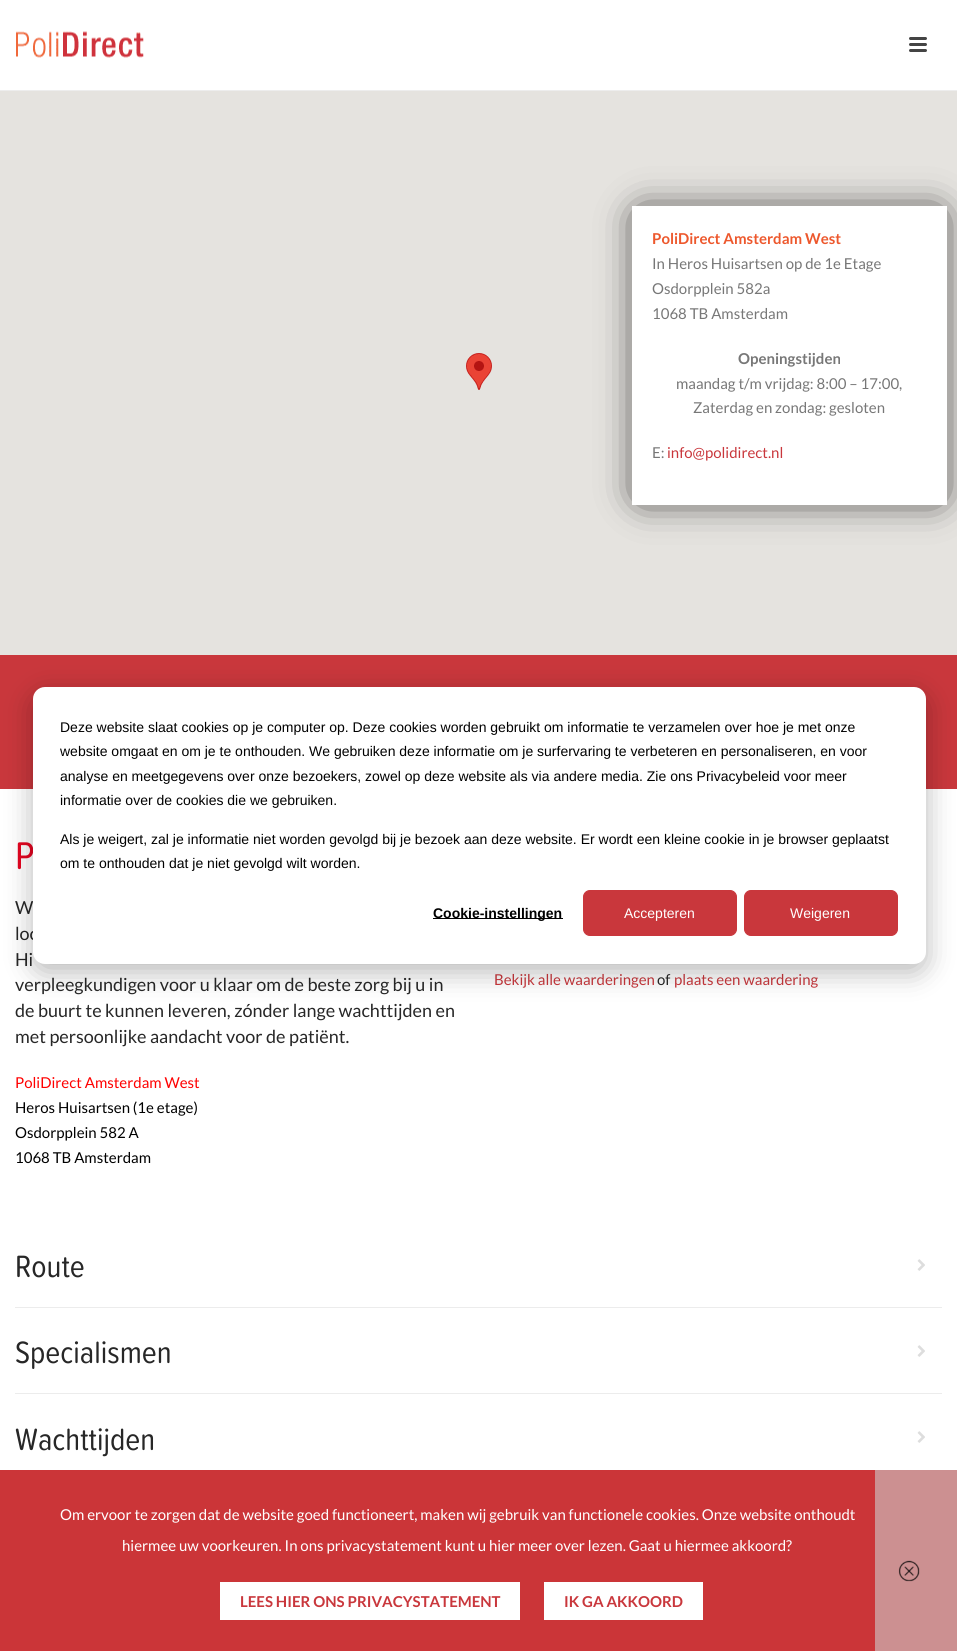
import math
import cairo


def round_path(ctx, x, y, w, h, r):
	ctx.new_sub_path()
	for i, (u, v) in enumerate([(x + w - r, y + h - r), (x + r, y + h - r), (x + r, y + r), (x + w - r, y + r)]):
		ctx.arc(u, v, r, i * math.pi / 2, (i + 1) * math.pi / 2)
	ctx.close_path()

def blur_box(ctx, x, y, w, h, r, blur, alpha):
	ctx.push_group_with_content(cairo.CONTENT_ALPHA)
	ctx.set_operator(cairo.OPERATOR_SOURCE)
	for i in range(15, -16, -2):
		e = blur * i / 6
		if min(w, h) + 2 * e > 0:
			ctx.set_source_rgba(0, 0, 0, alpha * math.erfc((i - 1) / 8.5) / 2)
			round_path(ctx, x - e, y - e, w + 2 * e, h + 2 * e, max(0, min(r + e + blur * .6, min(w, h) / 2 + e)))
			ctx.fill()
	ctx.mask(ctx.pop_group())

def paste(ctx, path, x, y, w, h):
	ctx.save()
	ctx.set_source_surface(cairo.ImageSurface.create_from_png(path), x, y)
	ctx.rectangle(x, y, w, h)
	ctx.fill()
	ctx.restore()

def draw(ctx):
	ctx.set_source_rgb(1, 1, 1)
	ctx.paint()
	ctx.set_source_rgb(0.929, 0.929, 0.929)
	ctx.rectangle(0, 90, 957, 1)
	ctx.fill()
	paste(ctx, 'media/1.png', 16, 31, 128, 27)
	ctx.set_source_rgb(0.267, 0.267, 0.267)
	round_path(ctx, 909, 37, 18, 3, 1.5)
	ctx.fill()
	round_path(ctx, 909, 43, 18, 3, 1.5)
	ctx.fill()
	round_path(ctx, 909, 49, 18, 3, 1.5)
	ctx.fill()
	ctx.set_source_rgb(0.898, 0.89, 0.875)
	ctx.rectangle(0, 91, 957, 564)
	ctx.fill()
	paste(ctx, 'media/2.png', 466, 353, 26, 37)
	ctx.set_source_rgb(0, 0, 0)
	blur_box(ctx, 642, 216, 295, 279, 0, 20, 1)
	ctx.set_source_rgb(1, 1, 1)
	ctx.rectangle(632, 206, 315, 299)
	ctx.fill()
	ctx.select_font_face('Lato', cairo.FONT_SLANT_NORMAL, cairo.FONT_WEIGHT_BOLD)
	ctx.set_font_size(15)
	ctx.set_source_rgb(0.929, 0.345, 0.176)
	ctx.move_to(652, 244)
	ctx.show_text('PoliDirect Amsterdam West')
	ctx.select_font_face('Lato')
	ctx.set_source_rgb(0.467, 0.467, 0.467)
	for x, y, s in [
		(652, 269, 'In Heros Huisartsen op de 1e Etage'),
		(652, 294, 'Osdorpplein 582a'),
		(652, 319, '1068 TB Amsterdam'),
	]:
		ctx.move_to(x, y)
		ctx.show_text(s)
	ctx.select_font_face('Lato', cairo.FONT_SLANT_NORMAL, cairo.FONT_WEIGHT_BOLD)
	ctx.move_to(738, 364)
	ctx.show_text('Openingstijden')
	ctx.select_font_face('Lato')
	for x, y, s in [
		(676, 389, 'maandag t/m vrijdag: 8:00 – 17:00,'),
		(693, 413, 'Zaterdag en zondag: gesloten'),
		(652, 458, 'E:'),
	]:
		ctx.move_to(x, y)
		ctx.show_text(s)
	ctx.set_source_rgb(0.788, 0.216, 0.235)
	ctx.move_to(667, 458)
	ctx.show_text('info@polidirect.nl')
	ctx.rectangle(0, 655, 957, 134)
	ctx.fill()
	ctx.select_font_face('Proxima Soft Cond')
	ctx.set_font_size(40)
	ctx.set_source_rgb(0.894, 0.02, 0.125)
	ctx.move_to(15, 869)
	ctx.show_text('P')
	ctx.select_font_face('Lato')
	ctx.set_font_size(18)
	ctx.set_source_rgb(0.153, 0.153, 0.153)
	for x, y, s in [
		(15, 914, 'W'),
		(15, 940, 'loc'),
		(15, 966, 'Hi'),
		(15, 991, 'verpleegkundigen voor u klaar om de beste zorg bij u in'),
		(15, 1017, 'de buurt te kunnen leveren, zónder lange wachttijden en'),
		(15, 1043, 'met persoonlijke aandacht voor de patiënt.'),
	]:
		ctx.move_to(x, y)
		ctx.show_text(s)
	ctx.set_font_size(15)
	ctx.set_source_rgb(1, 0, 0)
	ctx.move_to(15, 1088)
	ctx.show_text('PoliDirect Amsterdam West')
	ctx.set_source_rgb(0, 0, 0)
	for x, y, s in [
		(15, 1113, 'Heros Huisartsen (1e etage)'),
		(15, 1138, 'Osdorpplein 582 A'),
		(15, 1163, '1068 TB Amsterdam'),
	]:
		ctx.move_to(x, y)
		ctx.show_text(s)
	ctx.set_source_rgb(0.788, 0.216, 0.235)
	ctx.move_to(494, 985)
	ctx.show_text('Bekijk alle waarderingen')
	ctx.set_source_rgb(0.153, 0.153, 0.153)
	ctx.move_to(657, 985)
	ctx.show_text('of')
	ctx.set_source_rgb(0.788, 0.216, 0.235)
	ctx.move_to(674, 985)
	ctx.show_text('plaats een waardering')
	ctx.set_source_rgb(0.925, 0.925, 0.925)
	ctx.rectangle(15, 1307, 927, 1)
	ctx.fill()
	ctx.select_font_face('Proxima Soft Cond')
	ctx.set_font_size(32)
	ctx.set_source_rgb(0.153, 0.153, 0.153)
	ctx.move_to(15, 1277)
	ctx.show_text('Route')
	paste(ctx, 'media/3.png', 917, 1259, 8, 12)
	ctx.set_source_rgb(0.925, 0.925, 0.925)
	ctx.rectangle(15, 1393, 927, 1)
	ctx.fill()
	ctx.set_source_rgb(0.153, 0.153, 0.153)
	ctx.move_to(15, 1363)
	ctx.show_text('Specialismen')
	paste(ctx, 'media/3.png', 917, 1345, 8, 12)
	ctx.move_to(15, 1450)
	ctx.show_text('Wachttijden')
	paste(ctx, 'media/3.png', 917, 1431, 8, 12)
	ctx.set_source_rgb(0, 0, 0)
	blur_box(ctx, 33, 695, 893, 277, 12, 14, 0.28)
	ctx.set_source_rgb(1, 1, 1)
	round_path(ctx, 33, 687, 893, 277, 12)
	ctx.fill()
	ctx.select_font_face('Liberation Sans')
	ctx.set_font_size(14)
	ctx.set_source_rgb(0, 0, 0)
	for x, y, s in [
		(60, 732, 'Deze website slaat cookies op je computer op. Deze cookies worden gebruikt om informatie te verzamelen over hoe je met onze'),
		(60, 756, 'website omgaat en om je te onthouden. We gebruiken deze informatie om je surfervaring te verbeteren en personaliseren, en voor'),
		(60, 781, 'analyse en meetgegevens over onze bezoekers, zowel op deze website als via andere media. Zie ons Privacybeleid voor meer'),
		(60, 805, 'informatie over de cookies die we gebruiken.'),
		(60, 844, 'Als je weigert, zal je informatie niet worden gevolgd bij je bezoek aan deze website. Er wordt een kleine cookie in je browser geplaatst'),
		(60, 868, 'om te onthouden dat je niet gevolgd wilt worden.'),
	]:
		ctx.move_to(x, y)
		ctx.show_text(s)
	ctx.rectangle(433, 918, 130, 1)
	ctx.fill()
	ctx.select_font_face('Liberation Sans', cairo.FONT_SLANT_NORMAL, cairo.FONT_WEIGHT_BOLD)
	ctx.move_to(433, 918)
	ctx.show_text('Cookie-instellingen')
	ctx.set_source_rgb(0.788, 0.216, 0.235)
	round_path(ctx, 583.5, 890.5, 153, 45, 6.5)
	ctx.fill_preserve()
	ctx.set_line_width(1)
	ctx.stroke()
	ctx.select_font_face('Liberation Sans')
	ctx.set_source_rgb(1, 1, 1)
	ctx.move_to(624, 918)
	ctx.show_text('Accepteren')
	ctx.set_source_rgb(0.788, 0.216, 0.235)
	round_path(ctx, 744.5, 890.5, 153, 45, 6.5)
	ctx.fill_preserve()
	ctx.stroke()
	ctx.set_source_rgb(1, 1, 1)
	ctx.move_to(790, 918)
	ctx.show_text('Weigeren')
	ctx.set_source_rgb(0.796, 0.208, 0.22)
	ctx.rectangle(0, 1470, 875, 181)
	ctx.fill()
	ctx.select_font_face('Lato')
	ctx.set_font_size(15)
	ctx.set_source_rgb(1, 1, 1)
	ctx.move_to(60, 1520)
	ctx.show_text('Om ervoor te zorgen dat de website goed functioneert, maken wij gebruik van functionele cookies. Onze website onthoudt')
	ctx.move_to(122, 1551)
	ctx.show_text('hiermee uw voorkeuren. In ons privacystatement kunt u hier meer over lezen. Gaat u hiermee akkoord?')
	ctx.rectangle(220, 1582, 300, 38)
	ctx.fill()
	ctx.select_font_face('Lato', cairo.FONT_SLANT_NORMAL, cairo.FONT_WEIGHT_BOLD)
	ctx.set_source_rgb(0.788, 0.216, 0.235)
	ctx.move_to(240, 1607)
	ctx.show_text('LEES HIER ONS PRIVACYSTATEMENT')
	ctx.set_source_rgb(1, 1, 1)
	ctx.rectangle(544, 1582, 159, 38)
	ctx.fill()
	ctx.set_source_rgb(0.788, 0.216, 0.235)
	ctx.move_to(564, 1607)
	ctx.show_text('IK GA AKKOORD')
	ctx.set_source_rgb(0.8, 0.565, 0.569)
	ctx.rectangle(875, 1470, 82, 181)
	ctx.fill()
	paste(ctx, 'media/4.png', 898, 1560, 22, 22)


surface = cairo.ImageSurface(cairo.FORMAT_RGB24, 957, 1651)
ctx = cairo.Context(surface)
options = cairo.FontOptions()
options.set_hint_metrics(cairo.HINT_METRICS_OFF)
options.set_hint_style(cairo.HINT_STYLE_NONE)
ctx.set_font_options(options)
ctx.set_miter_limit(4)
draw(ctx)
surface.write_to_png('image.png')
